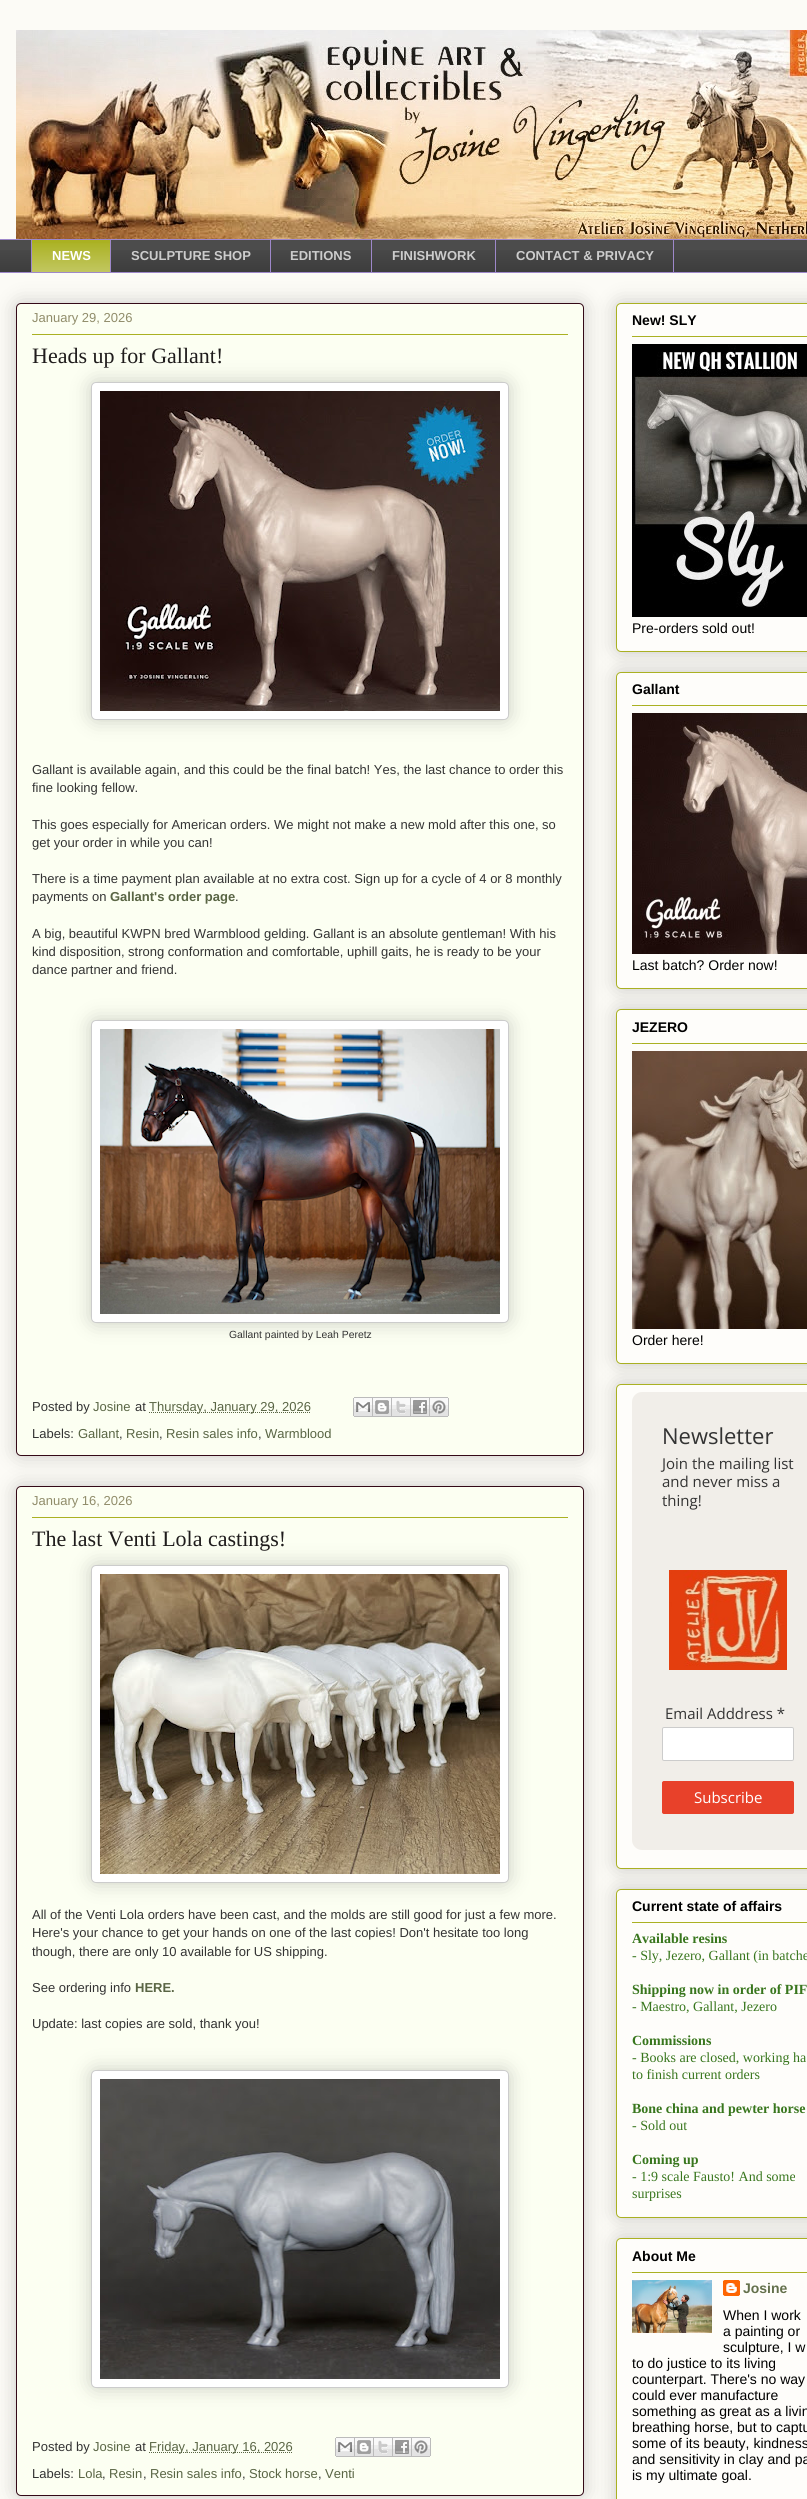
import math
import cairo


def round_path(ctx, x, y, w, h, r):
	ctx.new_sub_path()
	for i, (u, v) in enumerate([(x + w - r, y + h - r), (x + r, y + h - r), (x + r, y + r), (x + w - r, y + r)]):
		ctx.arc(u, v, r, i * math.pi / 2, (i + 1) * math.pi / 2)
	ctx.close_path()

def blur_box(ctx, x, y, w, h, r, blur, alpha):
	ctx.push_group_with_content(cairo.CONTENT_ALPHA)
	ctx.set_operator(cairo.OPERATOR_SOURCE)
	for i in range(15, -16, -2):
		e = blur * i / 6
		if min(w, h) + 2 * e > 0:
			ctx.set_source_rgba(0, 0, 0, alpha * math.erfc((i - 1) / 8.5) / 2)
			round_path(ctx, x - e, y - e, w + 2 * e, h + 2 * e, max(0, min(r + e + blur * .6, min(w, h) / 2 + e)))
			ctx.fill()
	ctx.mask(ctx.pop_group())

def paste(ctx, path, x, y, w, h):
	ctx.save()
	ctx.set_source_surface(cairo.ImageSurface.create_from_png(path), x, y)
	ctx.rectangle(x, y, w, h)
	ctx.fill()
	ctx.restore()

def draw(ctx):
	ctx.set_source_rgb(0.988, 0.984, 0.961)
	ctx.paint()
	paste(ctx, 'media/1.png', 16, 30, 791, 209)
	ctx.set_source_rgb(0.298, 0.298, 0.298)
	ctx.rectangle(0, 240, 807, 32)
	ctx.fill()
	paste(ctx, 'media/2.png', 0, 250, 807, 22)
	ctx.set_source_rgb(0.62, 0.533, 0.792)
	ctx.rectangle(0, 239, 807, 1)
	ctx.fill()
	ctx.set_source_rgb(0.667, 0.694, 0.133)
	ctx.rectangle(32, 240, 78, 32)
	ctx.fill()
	paste(ctx, 'media/3.png', 32, 243, 78, 29)
	ctx.set_source_rgb(0.62, 0.533, 0.792)
	ctx.rectangle(31, 239, 1, 34)
	ctx.fill()
	ctx.select_font_face('Liberation Sans', cairo.FONT_SLANT_NORMAL, cairo.FONT_WEIGHT_BOLD)
	ctx.set_font_size(13)
	ctx.set_source_rgb(1, 1, 1)
	ctx.move_to(52, 260)
	ctx.show_text('NEWS')
	ctx.set_source_rgb(0.62, 0.533, 0.792)
	ctx.rectangle(110, 239, 1, 34)
	ctx.fill()
	ctx.set_source_rgb(0.8, 0.8, 0.8)
	ctx.move_to(131, 260)
	ctx.show_text('SCULPTURE SHOP')
	ctx.set_source_rgb(0.62, 0.533, 0.792)
	ctx.rectangle(270, 239, 1, 34)
	ctx.fill()
	ctx.set_source_rgb(0.8, 0.8, 0.8)
	ctx.move_to(290, 260)
	ctx.show_text('EDITIONS')
	ctx.set_source_rgb(0.62, 0.533, 0.792)
	ctx.rectangle(371, 239, 1, 34)
	ctx.fill()
	ctx.set_source_rgb(0.8, 0.8, 0.8)
	ctx.move_to(392, 260)
	ctx.show_text('FINISHWORK')
	ctx.rectangle(495.5, 239.5, 178, 33)
	ctx.set_source_rgb(0.62, 0.533, 0.792)
	ctx.set_line_width(1)
	ctx.stroke()
	ctx.set_source_rgb(0.8, 0.8, 0.8)
	ctx.move_to(516, 260)
	ctx.show_text('CONTACT & PRIVACY')
	ctx.set_source_rgb(0.62, 0.533, 0.792)
	ctx.rectangle(0, 272, 807, 1)
	ctx.fill()
	ctx.set_source_rgb(0, 0, 0)
	blur_box(ctx, 16, 303, 568, 1153, 5, 10, 0.2)
	ctx.set_source_rgb(0.988, 1, 0.949)
	round_path(ctx, 16.5, 303.5, 567, 1152, 4.5)
	ctx.fill_preserve()
	ctx.set_source_rgb(0.204, 0.039, 0.09)
	ctx.stroke()
	ctx.select_font_face('Liberation Sans')
	ctx.set_source_rgb(0.565, 0.549, 0.416)
	ctx.move_to(32, 322)
	ctx.show_text('January 29, 2026')
	ctx.set_source_rgb(0.667, 0.694, 0.133)
	ctx.rectangle(32, 334, 536, 1)
	ctx.fill()
	ctx.select_font_face('Liberation Serif')
	ctx.set_font_size(22)
	ctx.set_source_rgb(0.122, 0.11, 0.11)
	ctx.move_to(32, 363)
	ctx.show_text('Heads up for Gallant!')
	ctx.set_source_rgb(0, 0, 0)
	blur_box(ctx, 91, 382, 418, 338, 5, 10, 0.2)
	ctx.set_source_rgb(1, 1, 1)
	round_path(ctx, 91.5, 382.5, 417, 337, 4.5)
	ctx.fill_preserve()
	ctx.set_source_rgb(0.8, 0.8, 0.8)
	ctx.stroke()
	paste(ctx, 'media/4.png', 100, 391, 400, 320)
	ctx.select_font_face('Liberation Sans')
	ctx.set_font_size(13)
	ctx.set_source_rgb(0.2, 0.2, 0.2)
	for x, y, s in [
		(32, 774, 'Gallant is available again, and this could be the final batch! Yes, the last chance to order this'),
		(32, 792, 'fine looking fellow.'),
		(32, 829, 'This goes especially for American orders. We might not make a new mold after this one, so'),
		(32, 847, 'get your order in while you can!'),
		(32, 883, 'There is a time payment plan available at no extra cost. Sign up for a cycle of 4 or 8 monthly'),
		(32, 901, 'payments on'),
	]:
		ctx.move_to(x, y)
		ctx.show_text(s)
	ctx.select_font_face('Liberation Sans', cairo.FONT_SLANT_NORMAL, cairo.FONT_WEIGHT_BOLD)
	ctx.set_source_rgb(0.349, 0.396, 0.267)
	ctx.move_to(110, 901)
	ctx.show_text('Gallant\'s order page')
	ctx.select_font_face('Liberation Sans')
	ctx.set_source_rgb(0.2, 0.2, 0.2)
	for x, y, s in [
		(235, 901, '.'),
		(32, 938, 'A big, beautiful KWPN bred Warmblood gelding. Gallant is an absolute gentleman! With his'),
		(32, 956, 'kind disposition, strong conformation and comfortable, uphill gaits, he is ready to be your'),
		(32, 974, 'dance partner and friend.'),
	]:
		ctx.move_to(x, y)
		ctx.show_text(s)
	ctx.set_source_rgb(0, 0, 0)
	blur_box(ctx, 91, 1020, 418, 303, 5, 10, 0.2)
	ctx.set_source_rgb(1, 1, 1)
	round_path(ctx, 91.5, 1020.5, 417, 302, 4.5)
	ctx.fill_preserve()
	ctx.set_source_rgb(0.8, 0.8, 0.8)
	ctx.stroke()
	paste(ctx, 'media/5.png', 100, 1029, 400, 285)
	ctx.set_font_size(10.4)
	ctx.set_source_rgb(0.2, 0.2, 0.2)
	ctx.move_to(229, 1338)
	ctx.show_text('Gallant painted by Leah Peretz')
	ctx.set_font_size(13)
	ctx.move_to(32, 1411)
	ctx.show_text('Posted by')
	ctx.set_source_rgb(0.349, 0.396, 0.267)
	ctx.move_to(93, 1411)
	ctx.show_text('Josine')
	ctx.set_source_rgb(0.2, 0.2, 0.2)
	ctx.move_to(135, 1411)
	ctx.show_text('at')
	ctx.new_path()
	ctx.move_to(149, 1412.5)
	ctx.line_to(311, 1412.5)
	ctx.set_source_rgb(0.349, 0.396, 0.267)
	ctx.set_dash([1, 1])
	ctx.stroke()
	ctx.move_to(149, 1411)
	ctx.show_text('Thursday, January 29, 2026')
	paste(ctx, 'media/6.png', 353, 1397, 20, 20)
	paste(ctx, 'media/7.png', 373, 1397, 19, 20)
	paste(ctx, 'media/8.png', 392, 1397, 19, 20)
	paste(ctx, 'media/9.png', 411, 1397, 19, 20)
	paste(ctx, 'media/10.png', 430, 1397, 19, 20)
	ctx.set_source_rgb(0.2, 0.2, 0.2)
	ctx.move_to(32, 1438)
	ctx.show_text('Labels:')
	ctx.set_source_rgb(0.349, 0.396, 0.267)
	ctx.move_to(78, 1438)
	ctx.show_text('Gallant')
	ctx.set_source_rgb(0.2, 0.2, 0.2)
	ctx.move_to(119, 1438)
	ctx.show_text(',')
	ctx.set_source_rgb(0.349, 0.396, 0.267)
	ctx.move_to(126, 1438)
	ctx.show_text('Resin')
	ctx.set_source_rgb(0.2, 0.2, 0.2)
	ctx.move_to(159, 1438)
	ctx.show_text(',')
	ctx.set_source_rgb(0.349, 0.396, 0.267)
	ctx.move_to(166, 1438)
	ctx.show_text('Resin sales info')
	ctx.set_source_rgb(0.2, 0.2, 0.2)
	ctx.move_to(258, 1438)
	ctx.show_text(',')
	ctx.set_source_rgb(0.349, 0.396, 0.267)
	ctx.move_to(265, 1438)
	ctx.show_text('Warmblood')
	ctx.set_source_rgb(0, 0, 0)
	blur_box(ctx, 16, 1486, 568, 1010, 5, 10, 0.2)
	ctx.set_source_rgb(0.988, 1, 0.949)
	round_path(ctx, 16.5, 1486.5, 567, 1009, 4.5)
	ctx.fill_preserve()
	ctx.set_source_rgb(0.204, 0.039, 0.09)
	ctx.set_dash([])
	ctx.stroke()
	ctx.set_source_rgb(0.565, 0.549, 0.416)
	ctx.move_to(32, 1505)
	ctx.show_text('January 16, 2026')
	ctx.set_source_rgb(0.667, 0.694, 0.133)
	ctx.rectangle(32, 1517, 536, 1)
	ctx.fill()
	ctx.select_font_face('Liberation Serif')
	ctx.set_font_size(22)
	ctx.set_source_rgb(0.122, 0.11, 0.11)
	ctx.move_to(32, 1546)
	ctx.show_text('The last Venti Lola castings!')
	ctx.set_source_rgb(0, 0, 0)
	blur_box(ctx, 91, 1565, 418, 318, 5, 10, 0.2)
	ctx.set_source_rgb(1, 1, 1)
	round_path(ctx, 91.5, 1565.5, 417, 317, 4.5)
	ctx.fill_preserve()
	ctx.set_source_rgb(0.8, 0.8, 0.8)
	ctx.stroke()
	paste(ctx, 'media/11.png', 100, 1574, 400, 300)
	ctx.select_font_face('Liberation Sans')
	ctx.set_font_size(13)
	ctx.set_source_rgb(0.2, 0.2, 0.2)
	for x, y, s in [
		(32, 1919, 'All of the Venti Lola orders have been cast, and the molds are still good for just a few more.'),
		(32, 1937, 'Here\'s your chance to get your hands on one of the last copies! Don\'t hesitate too long'),
		(32, 1956, 'though, there are only 10 available for US shipping.'),
		(32, 1992, 'See ordering info'),
	]:
		ctx.move_to(x, y)
		ctx.show_text(s)
	ctx.select_font_face('Liberation Sans', cairo.FONT_SLANT_NORMAL, cairo.FONT_WEIGHT_BOLD)
	ctx.set_source_rgb(0.349, 0.396, 0.267)
	ctx.move_to(135, 1992)
	ctx.show_text('HERE.')
	ctx.select_font_face('Liberation Sans')
	ctx.set_source_rgb(0.2, 0.2, 0.2)
	ctx.move_to(32, 2028)
	ctx.show_text('Update: last copies are sold, thank you!')
	ctx.set_source_rgb(0, 0, 0)
	blur_box(ctx, 91, 2070, 418, 318, 5, 10, 0.2)
	ctx.set_source_rgb(1, 1, 1)
	round_path(ctx, 91.5, 2070.5, 417, 317, 4.5)
	ctx.fill_preserve()
	ctx.set_source_rgb(0.8, 0.8, 0.8)
	ctx.stroke()
	paste(ctx, 'media/12.png', 100, 2079, 400, 300)
	ctx.set_source_rgb(0.2, 0.2, 0.2)
	ctx.move_to(32, 2451)
	ctx.show_text('Posted by')
	ctx.set_source_rgb(0.349, 0.396, 0.267)
	ctx.move_to(93, 2451)
	ctx.show_text('Josine')
	ctx.set_source_rgb(0.2, 0.2, 0.2)
	ctx.move_to(135, 2451)
	ctx.show_text('at')
	ctx.new_path()
	ctx.move_to(149, 2452.5)
	ctx.line_to(293, 2452.5)
	ctx.set_source_rgb(0.349, 0.396, 0.267)
	ctx.set_dash([1, 1])
	ctx.stroke()
	ctx.move_to(149, 2451)
	ctx.show_text('Friday, January 16, 2026')
	paste(ctx, 'media/6.png', 335, 2437, 20, 20)
	paste(ctx, 'media/7.png', 355, 2437, 19, 20)
	paste(ctx, 'media/8.png', 374, 2437, 19, 20)
	paste(ctx, 'media/9.png', 393, 2437, 19, 20)
	paste(ctx, 'media/10.png', 412, 2437, 19, 20)
	ctx.set_source_rgb(0.2, 0.2, 0.2)
	ctx.move_to(32, 2478)
	ctx.show_text('Labels:')
	ctx.set_source_rgb(0.349, 0.396, 0.267)
	ctx.move_to(78, 2478)
	ctx.show_text('Lola')
	ctx.set_source_rgb(0.2, 0.2, 0.2)
	ctx.move_to(102, 2478)
	ctx.show_text(',')
	ctx.set_source_rgb(0.349, 0.396, 0.267)
	ctx.move_to(109, 2478)
	ctx.show_text('Resin')
	ctx.set_source_rgb(0.2, 0.2, 0.2)
	ctx.move_to(143, 2478)
	ctx.show_text(',')
	ctx.set_source_rgb(0.349, 0.396, 0.267)
	ctx.move_to(150, 2478)
	ctx.show_text('Resin sales info')
	ctx.set_source_rgb(0.2, 0.2, 0.2)
	ctx.move_to(242, 2478)
	ctx.show_text(',')
	ctx.set_source_rgb(0.349, 0.396, 0.267)
	ctx.move_to(249, 2478)
	ctx.show_text('Stock horse')
	ctx.set_source_rgb(0.2, 0.2, 0.2)
	ctx.move_to(318, 2478)
	ctx.show_text(',')
	ctx.set_source_rgb(0.349, 0.396, 0.267)
	ctx.move_to(325, 2478)
	ctx.show_text('Venti')
	ctx.set_source_rgb(0, 0, 0)
	blur_box(ctx, 616, 303, 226, 349, 5, 10, 0.2)
	ctx.set_source_rgb(0.996, 0.992, 0.98)
	round_path(ctx, 616.5, 303.5, 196, 348, 4.5)
	ctx.fill_preserve()
	ctx.set_source_rgb(0.667, 0.694, 0.133)
	ctx.set_dash([])
	ctx.stroke()
	ctx.select_font_face('Liberation Sans', cairo.FONT_SLANT_NORMAL, cairo.FONT_WEIGHT_BOLD)
	ctx.set_font_size(14)
	ctx.set_source_rgb(0, 0, 0)
	ctx.move_to(632, 325)
	ctx.show_text('New! SLY')
	ctx.set_source_rgb(0.667, 0.694, 0.133)
	ctx.rectangle(632, 336, 175, 1)
	ctx.fill()
	paste(ctx, 'media/13.png', 632, 344, 175, 273)
	ctx.select_font_face('Liberation Sans')
	ctx.set_source_rgb(0, 0, 0)
	ctx.move_to(632, 633)
	ctx.show_text('Pre-orders sold out!')
	ctx.set_source_rgb(0, 0, 0)
	blur_box(ctx, 616, 672, 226, 317, 5, 10, 0.2)
	ctx.set_source_rgb(0.996, 0.992, 0.98)
	round_path(ctx, 616.5, 672.5, 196, 316, 4.5)
	ctx.fill_preserve()
	ctx.set_source_rgb(0.667, 0.694, 0.133)
	ctx.stroke()
	ctx.select_font_face('Liberation Sans', cairo.FONT_SLANT_NORMAL, cairo.FONT_WEIGHT_BOLD)
	ctx.set_source_rgb(0, 0, 0)
	ctx.move_to(632, 694)
	ctx.show_text('Gallant')
	ctx.set_source_rgb(0.667, 0.694, 0.133)
	ctx.rectangle(632, 705, 175, 1)
	ctx.fill()
	paste(ctx, 'media/14.png', 632, 713, 175, 241)
	ctx.select_font_face('Liberation Sans')
	ctx.set_source_rgb(0, 0, 0)
	ctx.move_to(632, 970)
	ctx.show_text('Last batch? Order now!')
	ctx.set_source_rgb(0, 0, 0)
	blur_box(ctx, 616, 1009, 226, 355, 5, 10, 0.2)
	ctx.set_source_rgb(0.996, 0.992, 0.98)
	round_path(ctx, 616.5, 1009.5, 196, 354, 4.5)
	ctx.fill_preserve()
	ctx.set_source_rgb(0.667, 0.694, 0.133)
	ctx.stroke()
	ctx.select_font_face('Liberation Sans', cairo.FONT_SLANT_NORMAL, cairo.FONT_WEIGHT_BOLD)
	ctx.set_source_rgb(0, 0, 0)
	ctx.move_to(632, 1032)
	ctx.show_text('JEZERO')
	ctx.set_source_rgb(0.667, 0.694, 0.133)
	ctx.rectangle(632, 1043, 175, 1)
	ctx.fill()
	paste(ctx, 'media/15.png', 632, 1051, 175, 278)
	ctx.select_font_face('Liberation Sans')
	ctx.set_source_rgb(0, 0, 0)
	ctx.move_to(632, 1345)
	ctx.show_text('Order here!')
	ctx.set_source_rgb(0, 0, 0)
	blur_box(ctx, 616, 1384, 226, 485, 5, 10, 0.2)
	ctx.set_source_rgb(0.996, 0.992, 0.98)
	round_path(ctx, 616.5, 1384.5, 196, 484, 4.5)
	ctx.fill_preserve()
	ctx.set_source_rgb(0.667, 0.694, 0.133)
	ctx.stroke()
	ctx.set_source_rgb(0.945, 0.933, 0.914)
	ctx.new_path()
	ctx.move_to(642, 1392)
	ctx.line_to(807, 1392)
	ctx.curve_to(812.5, 1392, 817, 1396.5, 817, 1402)
	ctx.line_to(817, 1540)
	ctx.line_to(632, 1540)
	ctx.line_to(632, 1402)
	ctx.curve_to(632, 1396.5, 636.5, 1392, 642, 1392)
	ctx.close_path()
	ctx.fill()
	ctx.select_font_face('Open Sans')
	ctx.set_font_size(22)
	ctx.set_source_rgb(0.2, 0.2, 0.2)
	ctx.move_to(662, 1444)
	ctx.show_text('Newsletter')
	ctx.set_font_size(15)
	for x, y, s in [
		(662, 1469, 'Join the mailing list'),
		(662, 1487, 'and never miss a'),
		(662, 1506, 'thing!'),
	]:
		ctx.move_to(x, y)
		ctx.show_text(s)
	ctx.set_source_rgb(0.945, 0.933, 0.914)
	ctx.rectangle(632, 1540, 175, 130)
	ctx.fill()
	paste(ctx, 'media/16.png', 669, 1570, 118, 100)
	ctx.new_path()
	ctx.move_to(632, 1670)
	ctx.line_to(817, 1670)
	ctx.line_to(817, 1840)
	ctx.curve_to(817, 1845.5, 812.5, 1850, 807, 1850)
	ctx.line_to(642, 1850)
	ctx.curve_to(636.5, 1850, 632, 1845.5, 632, 1840)
	ctx.close_path()
	ctx.fill()
	ctx.set_source_rgb(0.2, 0.2, 0.2)
	ctx.move_to(665, 1719)
	ctx.show_text('Email Adddress *')
	ctx.set_source_rgb(1, 1, 1)
	round_path(ctx, 662.5, 1727.5, 131, 33, 1.5)
	ctx.fill_preserve()
	ctx.set_source_rgb(0.8, 0.8, 0.8)
	ctx.stroke()
	ctx.set_source_rgb(0.91, 0.255, 0.165)
	round_path(ctx, 662.5, 1781.5, 131, 32, 1.5)
	ctx.fill_preserve()
	ctx.stroke()
	ctx.set_source_rgb(1, 1, 1)
	ctx.move_to(694, 1803)
	ctx.show_text('Subscribe')
	ctx.set_source_rgb(0, 0, 0)
	blur_box(ctx, 616, 1889, 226, 329, 5, 10, 0.2)
	ctx.set_source_rgb(0.996, 0.992, 0.98)
	round_path(ctx, 616.5, 1889.5, 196, 328, 4.5)
	ctx.fill_preserve()
	ctx.set_source_rgb(0.667, 0.694, 0.133)
	ctx.stroke()
	ctx.select_font_face('Liberation Sans', cairo.FONT_SLANT_NORMAL, cairo.FONT_WEIGHT_BOLD)
	ctx.set_font_size(14)
	ctx.set_source_rgb(0, 0, 0)
	ctx.move_to(632, 1911)
	ctx.show_text('Current state of affairs')
	ctx.set_source_rgb(0.667, 0.694, 0.133)
	ctx.rectangle(632, 1922, 175, 1)
	ctx.fill()
	ctx.select_font_face('Liberation Serif', cairo.FONT_SLANT_NORMAL, cairo.FONT_WEIGHT_BOLD)
	ctx.set_source_rgb(0.22, 0.463, 0.114)
	ctx.move_to(632, 1943)
	ctx.show_text('Available resins')
	ctx.select_font_face('Liberation Serif')
	ctx.move_to(632, 1960)
	ctx.show_text('- Sly, Jezero, Gallant (in batche')
	ctx.select_font_face('Liberation Serif', cairo.FONT_SLANT_NORMAL, cairo.FONT_WEIGHT_BOLD)
	ctx.move_to(632, 1994)
	ctx.show_text('Shipping now in order of PIF')
	ctx.select_font_face('Liberation Serif')
	ctx.move_to(632, 2011)
	ctx.show_text('- Maestro, Gallant, Jezero')
	ctx.select_font_face('Liberation Serif', cairo.FONT_SLANT_NORMAL, cairo.FONT_WEIGHT_BOLD)
	ctx.move_to(632, 2045)
	ctx.show_text('Commissions')
	ctx.select_font_face('Liberation Serif')
	ctx.move_to(632, 2062)
	ctx.show_text('- Books are closed, working ha')
	ctx.move_to(632, 2079)
	ctx.show_text('to finish current orders')
	ctx.select_font_face('Liberation Serif', cairo.FONT_SLANT_NORMAL, cairo.FONT_WEIGHT_BOLD)
	ctx.move_to(632, 2113)
	ctx.show_text('Bone china and pewter horse')
	ctx.select_font_face('Liberation Serif')
	ctx.move_to(632, 2130)
	ctx.show_text('- Sold out')
	ctx.select_font_face('Liberation Serif', cairo.FONT_SLANT_NORMAL, cairo.FONT_WEIGHT_BOLD)
	ctx.move_to(632, 2164)
	ctx.show_text('Coming up')
	ctx.select_font_face('Liberation Serif')
	ctx.move_to(632, 2181)
	ctx.show_text('- 1:9 scale Fausto! And some')
	ctx.move_to(632, 2198)
	ctx.show_text('surprises')
	ctx.set_source_rgb(0, 0, 0)
	blur_box(ctx, 616, 2238, 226, 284, 5, 10, 0.2)
	ctx.set_source_rgb(0.996, 0.992, 0.98)
	round_path(ctx, 616.5, 2238.5, 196, 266, 4.5)
	ctx.fill_preserve()
	ctx.set_source_rgb(0.667, 0.694, 0.133)
	ctx.stroke()
	ctx.select_font_face('Liberation Sans', cairo.FONT_SLANT_NORMAL, cairo.FONT_WEIGHT_BOLD)
	ctx.set_source_rgb(0, 0, 0)
	ctx.move_to(632, 2261)
	ctx.show_text('About Me')
	ctx.set_source_rgb(0.667, 0.694, 0.133)
	ctx.rectangle(632, 2272, 175, 1)
	ctx.fill()
	paste(ctx, 'media/17.png', 632, 2280, 80, 53)
	paste(ctx, 'media/18.png', 723, 2280, 17, 16)
	ctx.set_source_rgb(0.388, 0.439, 0.294)
	ctx.move_to(743, 2293)
	ctx.show_text('Josine')
	ctx.select_font_face('Liberation Sans')
	ctx.set_source_rgb(0, 0, 0)
	for x, y, s in [
		(723, 2320, 'When I work'),
		(723, 2336, 'a painting or'),
		(723, 2352, 'sculpture, I w'),
		(632, 2368, 'to do justice to its living'),
		(632, 2384, 'counterpart. There\'s no way'),
		(632, 2400, 'could ever manufacture'),
		(632, 2416, 'something as great as a livin'),
		(632, 2432, 'breathing horse, but to captu'),
		(632, 2448, 'some of its beauty, kindness'),
		(632, 2464, 'and sensitivity in clay and pa'),
		(632, 2480, 'is my ultimate goal.'),
	]:
		ctx.move_to(x, y)
		ctx.show_text(s)


surface = cairo.ImageSurface(cairo.FORMAT_RGB24, 807, 2499)
ctx = cairo.Context(surface)
options = cairo.FontOptions()
options.set_hint_metrics(cairo.HINT_METRICS_OFF)
options.set_hint_style(cairo.HINT_STYLE_NONE)
ctx.set_font_options(options)
ctx.set_miter_limit(4)
draw(ctx)
surface.write_to_png('image.png')
